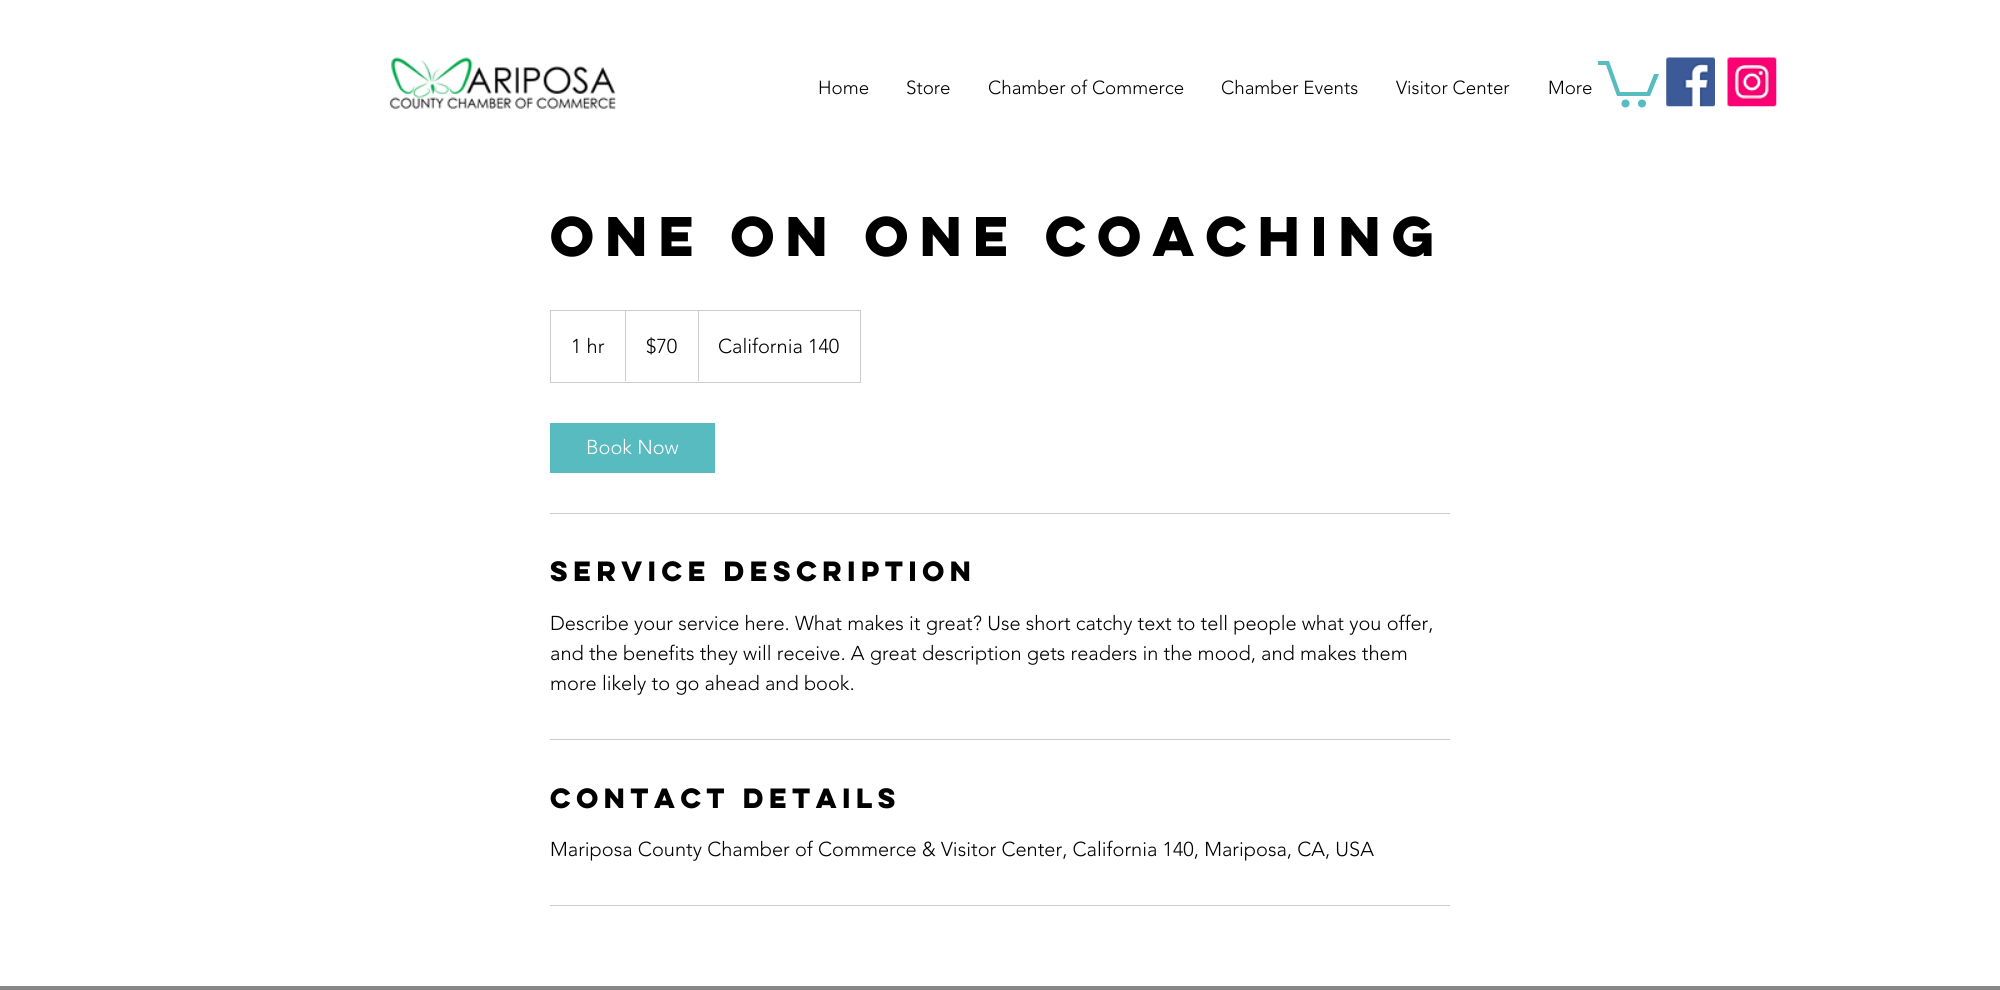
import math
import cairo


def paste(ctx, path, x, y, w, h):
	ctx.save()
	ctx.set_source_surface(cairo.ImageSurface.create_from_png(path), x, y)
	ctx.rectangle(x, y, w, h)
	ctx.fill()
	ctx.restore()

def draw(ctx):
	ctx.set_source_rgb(1, 1, 1)
	ctx.paint()
	paste(ctx, 'media/1.png', 389, 57, 227, 52)
	ctx.select_font_face('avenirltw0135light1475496 Light')
	ctx.set_font_size(18.75)
	ctx.set_source_rgb(0, 0, 0)
	for x, y, s in [
		(818, 94, 'Home'),
		(906, 94, 'Store'),
		(988, 94, 'Chamber of Commerce'),
		(1221, 94, 'Chamber Events'),
		(1396, 94, 'Visitor Center'),
		(1548, 94, 'More'),
	]:
		ctx.move_to(x, y)
		ctx.show_text(s)
	ctx.set_source_rgb(0.341, 0.733, 0.749)
	ctx.new_path()
	ctx.move_to(1659, 74)
	ctx.line_to(1650, 96)
	ctx.line_to(1617, 96)
	ctx.line_to(1606, 65)
	ctx.line_to(1598, 65)
	ctx.line_to(1598, 61)
	ctx.line_to(1609, 61)
	ctx.line_to(1620, 92)
	ctx.line_to(1647, 92)
	ctx.line_to(1654, 74)
	ctx.fill()
	ctx.arc(1642, 103.5, 4, 0, 2 * math.pi)
	ctx.fill()
	ctx.arc(1625.5, 103.5, 4, 0, 2 * math.pi)
	ctx.fill()
	paste(ctx, 'media/2.png', 1666, 57, 49, 50)
	paste(ctx, 'media/3.png', 1727, 57, 50, 50)
	ctx.select_font_face('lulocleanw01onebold', cairo.FONT_SLANT_NORMAL, cairo.FONT_WEIGHT_BOLD)
	ctx.set_font_size(50)
	ctx.set_source_rgb(0, 0, 0)
	ctx.move_to(550, 256)
	ctx.show_text('One On One Coaching')
	ctx.rectangle(550.5, 310.5, 310, 72)
	ctx.set_source_rgb(0.8, 0.8, 0.8)
	ctx.set_line_width(1)
	ctx.stroke()
	ctx.select_font_face('avenirltw0135light1475496 Light')
	ctx.set_font_size(20)
	ctx.set_source_rgb(0, 0, 0)
	ctx.move_to(571, 353)
	ctx.show_text('1 hr')
	ctx.set_source_rgb(0.8, 0.8, 0.8)
	ctx.new_path()
	ctx.move_to(625, 381)
	ctx.line_to(625, 310)
	ctx.line_to(626, 311)
	ctx.line_to(626, 381)
	ctx.close_path()
	ctx.fill()
	ctx.set_source_rgb(0, 0, 0)
	ctx.move_to(646, 353)
	ctx.show_text('$70')
	ctx.set_source_rgb(0.8, 0.8, 0.8)
	ctx.new_path()
	ctx.move_to(698, 381)
	ctx.line_to(698, 310)
	ctx.line_to(699, 311)
	ctx.line_to(699, 381)
	ctx.close_path()
	ctx.fill()
	ctx.set_source_rgb(0, 0, 0)
	ctx.move_to(718, 353)
	ctx.show_text('California 140')
	ctx.set_source_rgb(0.341, 0.733, 0.749)
	ctx.rectangle(550, 423, 165, 50)
	ctx.fill()
	ctx.set_source_rgb(1, 1, 1)
	ctx.move_to(586, 454)
	ctx.show_text('Book Now')
	ctx.set_source_rgb(0.8, 0.8, 0.8)
	ctx.rectangle(550, 513, 900, 1)
	ctx.fill()
	ctx.select_font_face('lulocleanw01onebold', cairo.FONT_SLANT_NORMAL, cairo.FONT_WEIGHT_BOLD)
	ctx.set_font_size(25)
	ctx.set_source_rgb(0, 0, 0)
	ctx.move_to(550, 581)
	ctx.show_text('Service Description')
	ctx.select_font_face('avenirltw0135light1475496 Light')
	ctx.set_font_size(20)
	for x, y, s in [
		(550, 630, 'Describe your service here. What makes it great? Use short catchy text to tell people what you offer,'),
		(550, 660, 'and the benefits they will receive. A great description gets readers in the mood, and makes them'),
		(550, 690, 'more likely to go ahead and book.'),
	]:
		ctx.move_to(x, y)
		ctx.show_text(s)
	ctx.set_source_rgb(0.8, 0.8, 0.8)
	ctx.rectangle(550, 739, 900, 1)
	ctx.fill()
	ctx.select_font_face('lulocleanw01onebold', cairo.FONT_SLANT_NORMAL, cairo.FONT_WEIGHT_BOLD)
	ctx.set_font_size(25)
	ctx.set_source_rgb(0, 0, 0)
	ctx.move_to(550, 808)
	ctx.show_text('Contact Details')
	ctx.select_font_face('avenirltw0135light1475496 Light')
	ctx.set_font_size(20)
	ctx.move_to(550, 856)
	ctx.show_text('Mariposa County Chamber of Commerce & Visitor Center, California 140, Mariposa, CA, USA')
	ctx.set_source_rgb(0.8, 0.8, 0.8)
	ctx.rectangle(550, 905, 900, 1)
	ctx.fill()
	ctx.set_source_rgb(0.533, 0.525, 0.525)
	ctx.rectangle(0, 986, 2000, 4)
	ctx.fill()


surface = cairo.ImageSurface(cairo.FORMAT_RGB24, 2000, 990)
ctx = cairo.Context(surface)
options = cairo.FontOptions()
options.set_hint_metrics(cairo.HINT_METRICS_OFF)
options.set_hint_style(cairo.HINT_STYLE_NONE)
ctx.set_font_options(options)
ctx.set_miter_limit(4)
draw(ctx)
surface.write_to_png('image.png')
